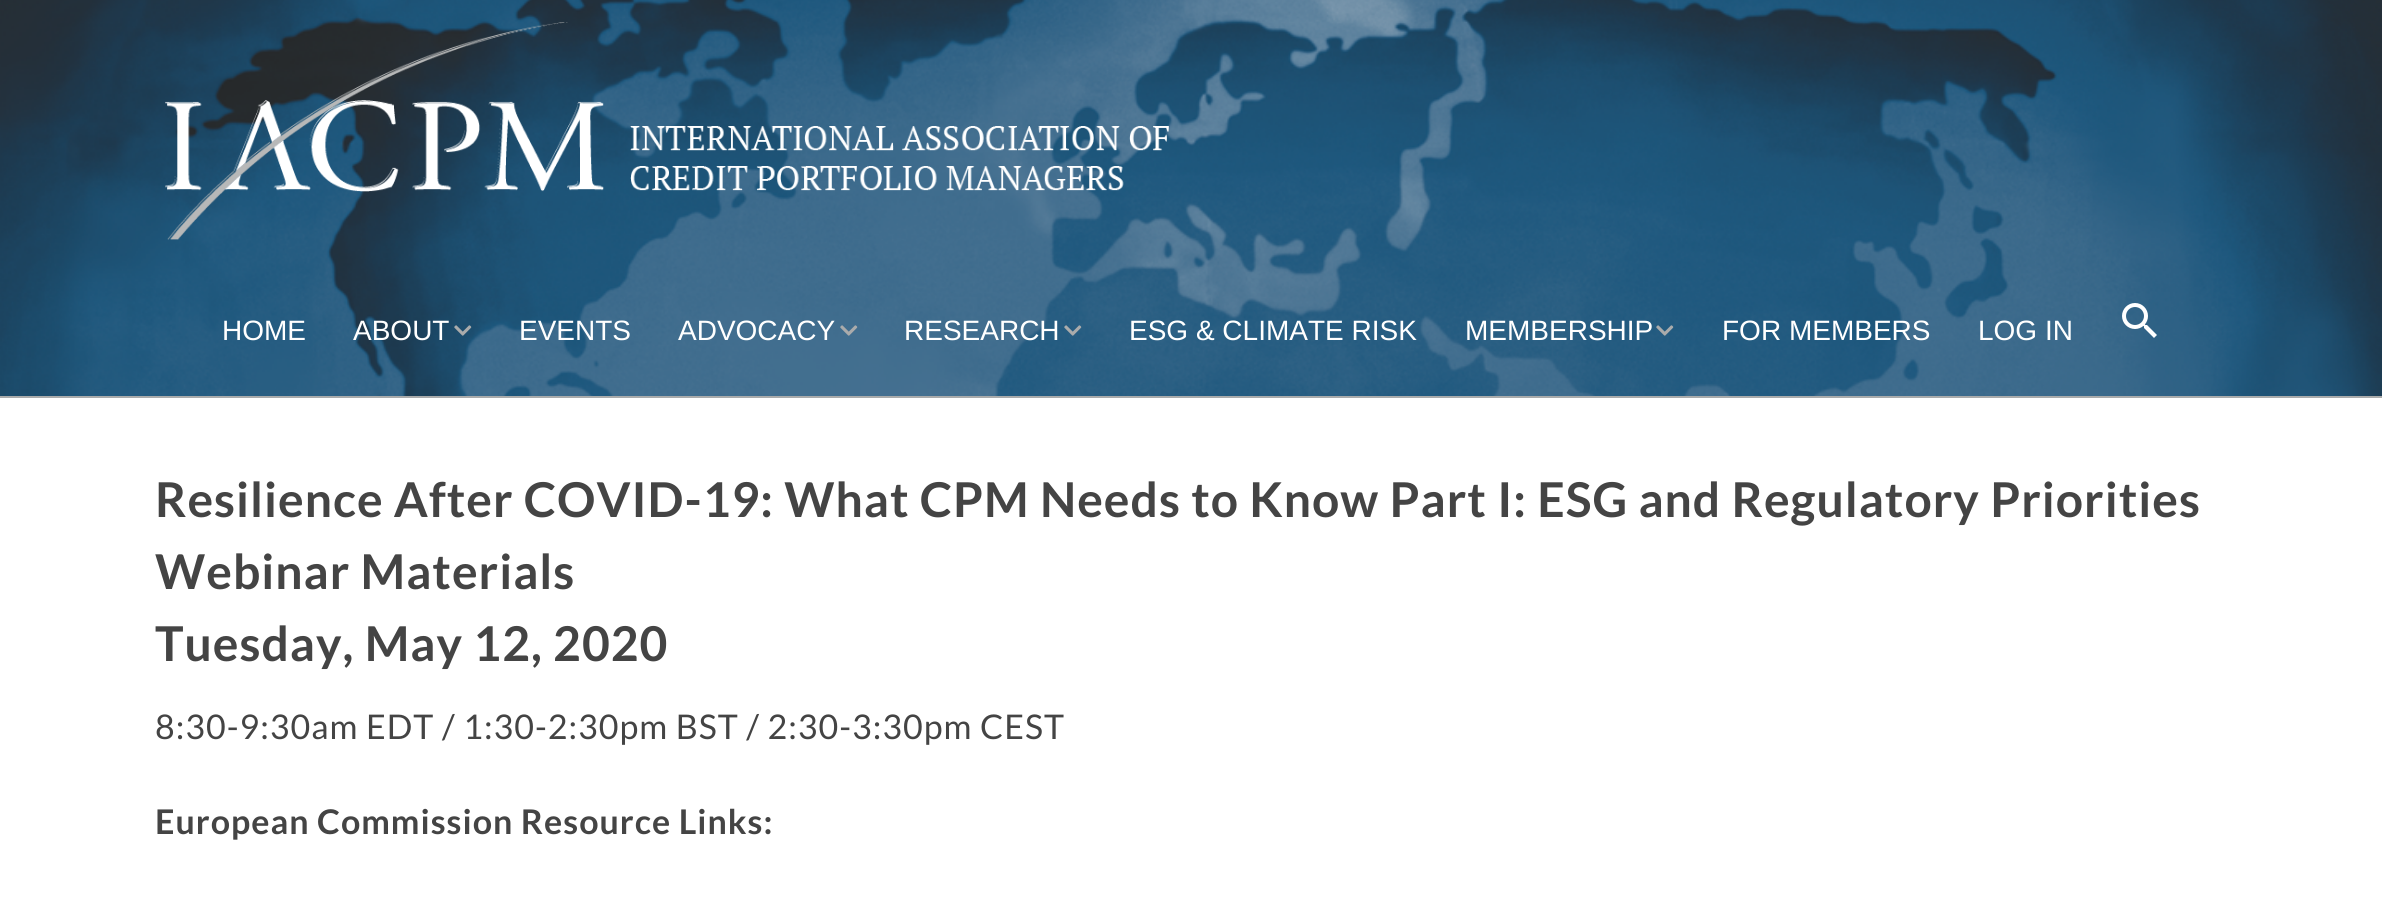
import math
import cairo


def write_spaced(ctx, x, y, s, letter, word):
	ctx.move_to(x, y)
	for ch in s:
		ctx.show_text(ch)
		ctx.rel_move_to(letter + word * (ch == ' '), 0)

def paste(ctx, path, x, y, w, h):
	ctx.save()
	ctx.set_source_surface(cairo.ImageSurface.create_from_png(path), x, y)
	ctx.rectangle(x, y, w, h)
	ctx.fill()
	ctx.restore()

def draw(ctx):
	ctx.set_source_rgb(1, 1, 1)
	ctx.paint()
	paste(ctx, 'media/1.png', 0, 0, 2382, 396)
	ctx.set_source_rgb(0.667, 0.671, 0.671)
	ctx.rectangle(0, 396, 2382, 2)
	ctx.fill()
	paste(ctx, 'media/2.png', 165, 22, 1004, 218)
	ctx.select_font_face('Liberation Sans')
	ctx.set_font_size(28)
	ctx.set_source_rgb(1, 1, 1)
	ctx.move_to(222, 340)
	ctx.show_text('HOME')
	ctx.move_to(353, 340)
	ctx.show_text('ABOUT')
	paste(ctx, 'media/3.png', 454, 325, 18, 11)
	ctx.move_to(519, 340)
	ctx.show_text('EVENTS')
	ctx.move_to(678, 340)
	ctx.show_text('ADVOCACY')
	paste(ctx, 'media/4.png', 840, 325, 18, 11)
	ctx.move_to(904, 340)
	ctx.show_text('RESEARCH')
	paste(ctx, 'media/5.png', 1064, 325, 18, 11)
	ctx.move_to(1129, 340)
	ctx.show_text('ESG & CLIMATE RISK')
	ctx.move_to(1465, 340)
	ctx.show_text('MEMBERSHIP')
	paste(ctx, 'media/6.png', 1656, 325, 18, 11)
	ctx.move_to(1722, 340)
	ctx.show_text('FOR MEMBERS')
	ctx.move_to(1978, 340)
	ctx.show_text('LOG IN')
	paste(ctx, 'media/7.png', 2122, 303, 35, 35)
	ctx.select_font_face('Lato', cairo.FONT_SLANT_NORMAL, cairo.FONT_WEIGHT_BOLD)
	ctx.set_font_size(48)
	ctx.set_source_rgb(0.267, 0.267, 0.267)
	for x, y, s in [
		(155, 517, 'Resilience After COVID-19: What CPM Needs to Know Part I: ESG and Regulatory Priorities'),
		(155, 589, 'Webinar Materials'),
		(155, 661, 'Tuesday, May 12, 2020'),
	]:
		write_spaced(ctx, x, y, s, 1, 0)
	ctx.select_font_face('Lato')
	ctx.set_font_size(34)
	write_spaced(ctx, 155, 739, '8:30-9:30am EDT / 1:30-2:30pm BST / 2:30-3:30pm CEST', 1, 0)
	ctx.select_font_face('Lato', cairo.FONT_SLANT_NORMAL, cairo.FONT_WEIGHT_BOLD)
	write_spaced(ctx, 155, 834, 'European Commission Resource Links:', 1, 0)


surface = cairo.ImageSurface(cairo.FORMAT_RGB24, 2382, 912)
ctx = cairo.Context(surface)
options = cairo.FontOptions()
options.set_hint_metrics(cairo.HINT_METRICS_OFF)
options.set_hint_style(cairo.HINT_STYLE_NONE)
ctx.set_font_options(options)
ctx.set_miter_limit(4)
draw(ctx)
surface.write_to_png('image.png')
